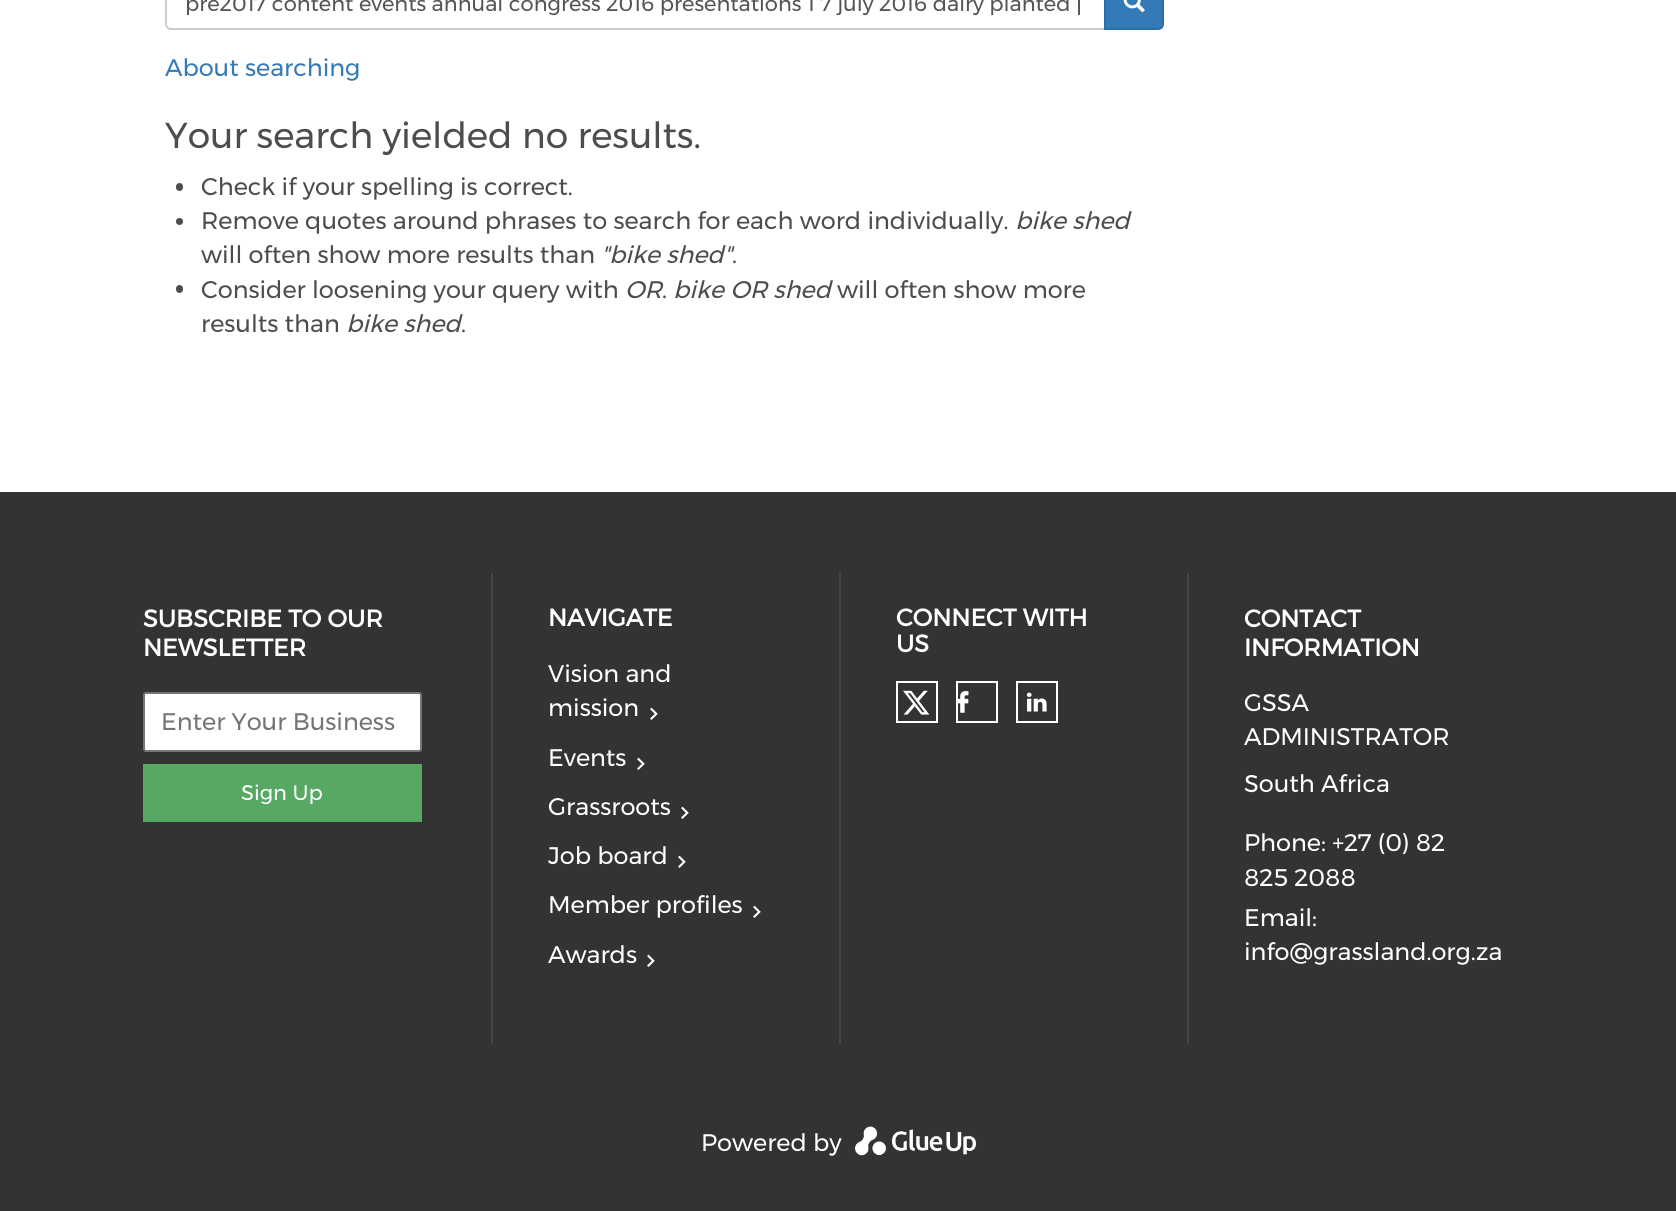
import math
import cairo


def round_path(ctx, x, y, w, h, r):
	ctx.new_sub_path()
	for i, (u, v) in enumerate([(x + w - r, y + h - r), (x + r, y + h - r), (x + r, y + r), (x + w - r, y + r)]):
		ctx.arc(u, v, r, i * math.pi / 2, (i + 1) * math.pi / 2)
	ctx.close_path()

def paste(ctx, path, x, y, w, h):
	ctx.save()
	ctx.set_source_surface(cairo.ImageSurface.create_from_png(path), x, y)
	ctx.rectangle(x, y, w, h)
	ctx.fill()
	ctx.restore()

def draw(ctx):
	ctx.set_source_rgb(1, 1, 1)
	ctx.paint()
	ctx.new_path()
	ctx.move_to(171, -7)
	ctx.line_to(1105, -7)
	ctx.line_to(1105, 29)
	ctx.line_to(171, 29)
	ctx.curve_to(168, 29, 166, 27, 166, 24)
	ctx.line_to(166, -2)
	ctx.curve_to(166, -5, 168, -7, 171, -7)
	ctx.close_path()
	ctx.set_source_rgb(0.8, 0.8, 0.8)
	ctx.stroke()
	ctx.save()
	ctx.rectangle(185, 0, 895, 18)
	ctx.clip()
	ctx.select_font_face('Montserrat')
	ctx.set_font_size(21)
	ctx.set_source_rgb(0.333, 0.333, 0.333)
	ctx.move_to(185, 11)
	ctx.show_text('pre2017 content events annual congress 2016 presentations 1 7 july 2016 dairy planted p')
	ctx.restore()
	ctx.set_source_rgb(0.2, 0.478, 0.718)
	ctx.new_path()
	ctx.move_to(1105, -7)
	ctx.line_to(1158, -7)
	ctx.curve_to(1161, -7, 1163, -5, 1163, -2)
	ctx.line_to(1163, 24)
	ctx.curve_to(1163, 27, 1161, 29, 1158, 29)
	ctx.line_to(1105, 29)
	ctx.close_path()
	ctx.fill_preserve()
	ctx.set_source_rgb(0.18, 0.427, 0.643)
	ctx.stroke()
	paste(ctx, 'media/1.png', 1123, 0, 22, 13)
	ctx.select_font_face('Montserrat')
	ctx.set_font_size(24)
	ctx.set_source_rgb(0.2, 0.478, 0.718)
	ctx.move_to(165, 76)
	ctx.show_text('About searching')
	ctx.set_font_size(36)
	ctx.set_source_rgb(0.302, 0.302, 0.302)
	ctx.move_to(165, 148)
	ctx.show_text('Your search yielded no results.')
	round_path(ctx, 176, 183, 7, 8, 3.5)
	ctx.fill()
	ctx.set_font_size(24)
	ctx.move_to(201, 195)
	ctx.show_text('Check if your spelling is correct.')
	ctx.new_path()
	ctx.arc(179.5, 221.5, 3.5, 0, 2 * math.pi)
	ctx.fill()
	ctx.move_to(201, 229)
	ctx.show_text('Remove quotes around phrases to search for each word individually.')
	ctx.select_font_face('Montserrat', cairo.FONT_SLANT_ITALIC)
	ctx.move_to(1015, 229)
	ctx.show_text('bike shed')
	ctx.select_font_face('Montserrat')
	ctx.move_to(201, 263)
	ctx.show_text('will often show more results than')
	ctx.select_font_face('Montserrat', cairo.FONT_SLANT_ITALIC)
	ctx.move_to(601, 263)
	ctx.show_text('"bike shed"')
	ctx.select_font_face('Montserrat')
	ctx.move_to(732, 263)
	ctx.show_text('.')
	round_path(ctx, 176, 285, 7, 8, 3.5)
	ctx.fill()
	ctx.move_to(201, 298)
	ctx.show_text('Consider loosening your query with')
	ctx.select_font_face('Montserrat', cairo.FONT_SLANT_ITALIC)
	ctx.move_to(625, 298)
	ctx.show_text('OR')
	ctx.move_to(673, 298)
	ctx.show_text('bike OR shed')
	ctx.select_font_face('Montserrat')
	for x, y, s in [
		(837, 298, 'will often show more'),
		(662, 298, '.'),
		(201, 332, 'results than'),
	]:
		ctx.move_to(x, y)
		ctx.show_text(s)
	ctx.select_font_face('Montserrat', cairo.FONT_SLANT_ITALIC)
	ctx.move_to(346, 332)
	ctx.show_text('bike shed')
	ctx.select_font_face('Montserrat')
	ctx.move_to(461, 332)
	ctx.show_text('.')
	ctx.set_source_rgb(0.2, 0.2, 0.2)
	ctx.rectangle(0, 492, 1676, 719)
	ctx.fill()
	ctx.select_font_face('Montserrat', cairo.FONT_SLANT_NORMAL, cairo.FONT_WEIGHT_BOLD)
	ctx.set_source_rgb(1, 1, 1)
	ctx.move_to(143, 627)
	ctx.show_text('SUBSCRIBE TO OUR')
	ctx.move_to(143, 656)
	ctx.show_text('NEWSLETTER')
	round_path(ctx, 144, 693, 277, 58, 2)
	ctx.fill_preserve()
	ctx.set_source_rgb(0.463, 0.463, 0.463)
	ctx.stroke()
	ctx.select_font_face('Montserrat')
	ctx.set_source_rgb(0.459, 0.459, 0.459)
	ctx.move_to(161, 730)
	ctx.show_text('Enter Your Business')
	ctx.set_source_rgb(0.337, 0.659, 0.388)
	ctx.rectangle(143, 764, 279, 58)
	ctx.fill()
	ctx.set_font_size(21)
	ctx.set_source_rgb(1, 1, 1)
	ctx.move_to(241, 800)
	ctx.show_text('Sign Up')
	ctx.set_source_rgb(0.275, 0.275, 0.275)
	ctx.rectangle(491, 573, 2, 471)
	ctx.fill()
	ctx.select_font_face('Montserrat', cairo.FONT_SLANT_NORMAL, cairo.FONT_WEIGHT_BOLD)
	ctx.set_font_size(24)
	ctx.set_source_rgb(1, 1, 1)
	ctx.move_to(548, 626)
	ctx.show_text('NAVIGATE')
	ctx.select_font_face('Montserrat')
	ctx.move_to(548, 682)
	ctx.show_text('Vision and')
	ctx.move_to(548, 716)
	ctx.show_text('mission')
	ctx.select_font_face('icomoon')
	ctx.set_font_size(26)
	ctx.save()
	ctx.translate(665, 720)
	ctx.rotate(-90 * math.pi / 180)
	ctx.move_to(0, 0)
	ctx.show_text('9')
	ctx.restore()
	ctx.select_font_face('Montserrat')
	ctx.set_font_size(24)
	ctx.move_to(548, 766)
	ctx.show_text('Events')
	ctx.select_font_face('icomoon')
	ctx.set_font_size(26)
	ctx.save()
	ctx.translate(652, 770)
	ctx.rotate(-90 * math.pi / 180)
	ctx.move_to(0, 0)
	ctx.show_text('9')
	ctx.restore()
	ctx.select_font_face('Montserrat')
	ctx.set_font_size(24)
	ctx.move_to(548, 815)
	ctx.show_text('Grassroots')
	ctx.select_font_face('icomoon')
	ctx.set_font_size(26)
	ctx.save()
	ctx.translate(696, 819)
	ctx.rotate(-90 * math.pi / 180)
	ctx.move_to(0, 0)
	ctx.show_text('9')
	ctx.restore()
	ctx.select_font_face('Montserrat')
	ctx.set_font_size(24)
	ctx.move_to(548, 864)
	ctx.show_text('Job board')
	ctx.select_font_face('icomoon')
	ctx.set_font_size(26)
	ctx.save()
	ctx.translate(693, 868)
	ctx.rotate(-90 * math.pi / 180)
	ctx.move_to(0, 0)
	ctx.show_text('9')
	ctx.restore()
	ctx.select_font_face('Montserrat')
	ctx.set_font_size(24)
	ctx.move_to(548, 913)
	ctx.show_text('Member profiles')
	ctx.select_font_face('icomoon')
	ctx.set_font_size(26)
	ctx.save()
	ctx.translate(768, 918)
	ctx.rotate(-90 * math.pi / 180)
	ctx.move_to(0, 0)
	ctx.show_text('9')
	ctx.restore()
	ctx.select_font_face('Montserrat')
	ctx.set_font_size(24)
	ctx.move_to(548, 963)
	ctx.show_text('Awards')
	ctx.select_font_face('icomoon')
	ctx.set_font_size(26)
	ctx.save()
	ctx.translate(662, 967)
	ctx.rotate(-90 * math.pi / 180)
	ctx.move_to(0, 0)
	ctx.show_text('9')
	ctx.restore()
	ctx.set_source_rgb(0.275, 0.275, 0.275)
	ctx.rectangle(839, 573, 2, 471)
	ctx.fill()
	ctx.select_font_face('Montserrat', cairo.FONT_SLANT_NORMAL, cairo.FONT_WEIGHT_BOLD)
	ctx.set_font_size(24)
	ctx.set_source_rgb(1, 1, 1)
	ctx.move_to(896, 626)
	ctx.show_text('CONNECT WITH')
	ctx.move_to(896, 652)
	ctx.show_text('US')
	ctx.rectangle(897, 682, 40, 40)
	ctx.stroke()
	paste(ctx, 'media/2.png', 903, 690, 27, 25)
	ctx.rectangle(957, 682, 40, 40)
	ctx.stroke()
	ctx.select_font_face('icomoon')
	ctx.set_font_size(39)
	ctx.move_to(957, 719)
	ctx.show_text('3')
	ctx.rectangle(1017, 682, 40, 40)
	ctx.stroke()
	paste(ctx, 'media/3.png', 1026, 692, 21, 20)
	ctx.set_source_rgb(0.275, 0.275, 0.275)
	ctx.rectangle(1187, 573, 2, 471)
	ctx.fill()
	ctx.select_font_face('Montserrat', cairo.FONT_SLANT_NORMAL, cairo.FONT_WEIGHT_BOLD)
	ctx.set_font_size(24)
	ctx.set_source_rgb(1, 1, 1)
	ctx.move_to(1244, 627)
	ctx.show_text('CONTACT')
	ctx.move_to(1244, 656)
	ctx.show_text('INFORMATION')
	ctx.select_font_face('Montserrat')
	for x, y, s in [
		(1244, 711, 'GSSA'),
		(1244, 745, 'ADMINISTRATOR'),
		(1244, 792, 'South Africa'),
		(1244, 851, 'Phone: +27 (0) 82'),
		(1244, 886, '825 2088'),
		(1244, 926, 'Email:'),
		(1244, 960, 'info@grassland.org.za'),
		(701, 1151, 'Powered by'),
	]:
		ctx.move_to(x, y)
		ctx.show_text(s)
	paste(ctx, 'media/4.png', 855, 1126, 122, 30)


surface = cairo.ImageSurface(cairo.FORMAT_RGB24, 1676, 1211)
ctx = cairo.Context(surface)
options = cairo.FontOptions()
options.set_hint_metrics(cairo.HINT_METRICS_OFF)
options.set_hint_style(cairo.HINT_STYLE_NONE)
ctx.set_font_options(options)
ctx.set_miter_limit(4)
draw(ctx)
surface.write_to_png('image.png')
